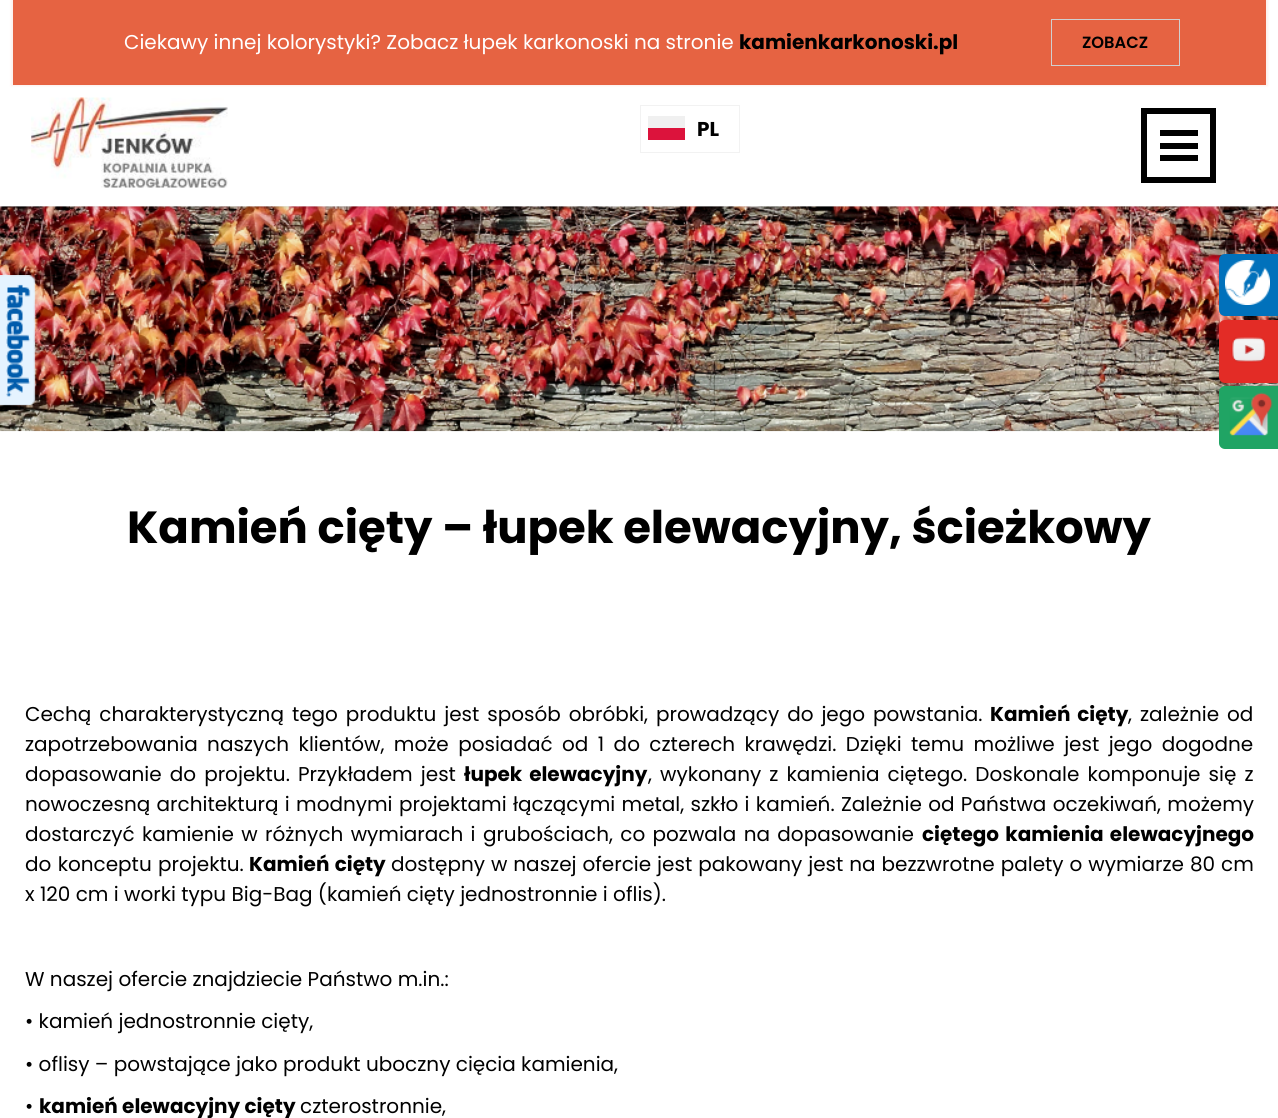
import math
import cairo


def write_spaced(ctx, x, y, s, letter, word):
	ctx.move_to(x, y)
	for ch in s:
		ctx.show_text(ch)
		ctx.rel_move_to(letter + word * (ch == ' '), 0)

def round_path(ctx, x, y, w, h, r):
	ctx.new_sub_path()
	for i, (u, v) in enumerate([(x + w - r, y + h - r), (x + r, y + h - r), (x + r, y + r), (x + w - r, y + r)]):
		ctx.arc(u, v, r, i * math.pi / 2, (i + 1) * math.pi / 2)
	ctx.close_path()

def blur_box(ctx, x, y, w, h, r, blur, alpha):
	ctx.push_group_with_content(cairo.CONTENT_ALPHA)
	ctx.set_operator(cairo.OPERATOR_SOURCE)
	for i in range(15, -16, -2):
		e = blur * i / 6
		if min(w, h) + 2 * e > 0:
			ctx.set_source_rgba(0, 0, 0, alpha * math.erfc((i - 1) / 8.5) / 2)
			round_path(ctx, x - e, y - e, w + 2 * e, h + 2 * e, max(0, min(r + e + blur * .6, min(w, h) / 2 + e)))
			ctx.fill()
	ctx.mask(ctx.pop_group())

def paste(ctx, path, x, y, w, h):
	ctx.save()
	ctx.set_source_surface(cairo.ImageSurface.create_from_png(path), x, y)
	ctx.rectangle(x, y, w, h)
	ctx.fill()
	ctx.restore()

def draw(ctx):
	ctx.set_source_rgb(1, 1, 1)
	ctx.paint()
	paste(ctx, 'media/3.png', 0, 206, 1278, 226)
	paste(ctx, 'media/1.png', 0, 275, 36, 131)
	ctx.save()
	ctx.rectangle(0, 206, 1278, 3)
	ctx.clip()
	ctx.set_source_rgb(0, 0, 0)
	blur_box(ctx, -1, -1, 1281, 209, 0, 1, 0.1)
	ctx.restore()
	ctx.set_source_rgb(0.902, 0.388, 0.259)
	blur_box(ctx, 11, -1, 1257, 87, 0, 1, 0.1)
	ctx.set_source_rgb(0.902, 0.388, 0.259)
	ctx.rectangle(13, 0, 1253, 85)
	ctx.fill()
	ctx.select_font_face('Poppins')
	ctx.set_font_size(20)
	ctx.set_source_rgb(1, 1, 1)
	ctx.move_to(124, 49)
	ctx.show_text('Ciekawy innej kolorystyki? Zobacz łupek karkonoski na stronie')
	ctx.select_font_face('Poppins', cairo.FONT_SLANT_NORMAL, cairo.FONT_WEIGHT_BOLD)
	ctx.set_source_rgb(0, 0, 0)
	ctx.move_to(739, 49)
	ctx.show_text('kamienkarkonoski.pl')
	ctx.rectangle(1051.5, 19.5, 128, 46)
	ctx.set_source_rgb(0.816, 0.816, 0.816)
	ctx.set_line_width(1)
	ctx.stroke()
	ctx.select_font_face('Poppins SemiBold')
	ctx.set_font_size(16.25)
	ctx.set_source_rgb(0, 0, 0)
	ctx.move_to(1082, 48)
	ctx.show_text('ZOBACZ')
	paste(ctx, 'media/2.png', 31, 97, 197, 91)
	ctx.rectangle(640.5, 105.5, 99, 47)
	ctx.set_source_rgb(0.949, 0.949, 0.949)
	ctx.stroke()
	ctx.set_source_rgb(0.941, 0.941, 0.941)
	ctx.rectangle(648, 116, 37, 12)
	ctx.fill()
	ctx.set_source_rgb(0.863, 0.078, 0.235)
	ctx.rectangle(648, 128, 37, 12)
	ctx.fill()
	ctx.select_font_face('Poppins', cairo.FONT_SLANT_NORMAL, cairo.FONT_WEIGHT_BOLD)
	ctx.set_font_size(20)
	ctx.set_source_rgb(0, 0, 0)
	ctx.move_to(697, 136)
	ctx.show_text('PL')
	ctx.rectangle(1144, 111, 69, 69)
	ctx.set_line_width(6)
	ctx.stroke()
	ctx.rectangle(1160, 130, 38, 6)
	ctx.rectangle(1160, 143, 38, 6)
	ctx.rectangle(1160, 155, 38, 6)
	ctx.fill()
	ctx.set_font_size(45)
	ctx.move_to(127, 543)
	ctx.show_text('Kamień cięty – łupek elewacyjny, ścieżkowy')
	ctx.select_font_face('Poppins')
	ctx.set_font_size(20)
	write_spaced(ctx, 25, 721, 'Cechą charakterystyczną tego produktu jest sposób obróbki, prowadzący do jego powstania.', 0, 2.6)
	ctx.select_font_face('Poppins', cairo.FONT_SLANT_NORMAL, cairo.FONT_WEIGHT_BOLD)
	write_spaced(ctx, 990, 721, 'Kamień cięty', 0, 2.6)
	ctx.select_font_face('Poppins')
	write_spaced(ctx, 1128, 721, ', zależnie od', 0, 2.6)
	write_spaced(ctx, 25, 751, 'zapotrzebowania naszych klientów, może posiadać od 1 do czterech krawędzi. Dzięki temu możliwe jest jego dogodne', 0, 4.1)
	write_spaced(ctx, 25, 781, 'dopasowanie do projektu. Przykładem jest', 0, 2.75)
	ctx.select_font_face('Poppins', cairo.FONT_SLANT_NORMAL, cairo.FONT_WEIGHT_BOLD)
	write_spaced(ctx, 464, 781, 'łupek elewacyjny', 0, 2.75)
	ctx.select_font_face('Poppins')
	write_spaced(ctx, 648, 781, ', wykonany z kamienia ciętego. Doskonale komponuje się z', 0, 2.75)
	write_spaced(ctx, 25, 811, 'nowoczesną architekturą i modnymi projektami łączącymi metal, szkło i kamień. Zależnie od Państwa oczekiwań, możemy', 0, 1)
	write_spaced(ctx, 25, 841, 'dostarczyć kamienie w różnych wymiarach i grubościach, co pozwala na dopasowanie', 0, 2)
	ctx.select_font_face('Poppins', cairo.FONT_SLANT_NORMAL, cairo.FONT_WEIGHT_BOLD)
	write_spaced(ctx, 922, 841, 'ciętego kamienia elewacyjnego', 0, 2)
	ctx.select_font_face('Poppins')
	write_spaced(ctx, 25, 871, 'do konceptu projektu.', 0, 1)
	ctx.select_font_face('Poppins', cairo.FONT_SLANT_NORMAL, cairo.FONT_WEIGHT_BOLD)
	write_spaced(ctx, 249, 871, 'Kamień cięty', 0, 1)
	ctx.select_font_face('Poppins')
	write_spaced(ctx, 391, 871, 'dostępny w naszej ofercie jest pakowany jest na bezzwrotne palety o wymiarze 80 cm', 0, 0.6)
	for x, y, s in [
		(25, 901, 'x 120 cm i worki typu Big-Bag (kamień cięty jednostronnie i oflis).'),
		(25, 986, 'W naszej ofercie znajdziecie Państwo m.in.:'),
		(25, 1028, '• kamień jednostronnie cięty,'),
		(25, 1071, '• oflisy – powstające jako produkt uboczny cięcia kamienia,'),
		(25, 1113, '•'),
	]:
		ctx.move_to(x, y)
		ctx.show_text(s)
	ctx.select_font_face('Poppins', cairo.FONT_SLANT_NORMAL, cairo.FONT_WEIGHT_BOLD)
	ctx.move_to(39, 1113)
	ctx.show_text('kamień elewacyjny cięty')
	ctx.select_font_face('Poppins')
	ctx.move_to(300, 1113)
	ctx.show_text('czterostronnie,')
	ctx.set_source_rgb(0.004, 0.443, 0.733)
	round_path(ctx, 1219, 254, 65, 62, 6)
	ctx.fill()
	paste(ctx, 'media/4.png', 1225, 260, 45, 45)
	ctx.set_source_rgb(0.89, 0.173, 0.149)
	round_path(ctx, 1219, 320, 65, 63, 6)
	ctx.fill()
	paste(ctx, 'media/5.png', 1231, 337, 35, 26)
	ctx.set_source_rgb(0.125, 0.643, 0.392)
	round_path(ctx, 1219, 386, 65, 63, 6)
	ctx.fill()
	paste(ctx, 'media/6.png', 1229, 392, 44, 44)


surface = cairo.ImageSurface(cairo.FORMAT_RGB24, 1278, 1118)
ctx = cairo.Context(surface)
options = cairo.FontOptions()
options.set_hint_metrics(cairo.HINT_METRICS_OFF)
options.set_hint_style(cairo.HINT_STYLE_NONE)
ctx.set_font_options(options)
ctx.set_miter_limit(4)
draw(ctx)
surface.write_to_png('image.png')
